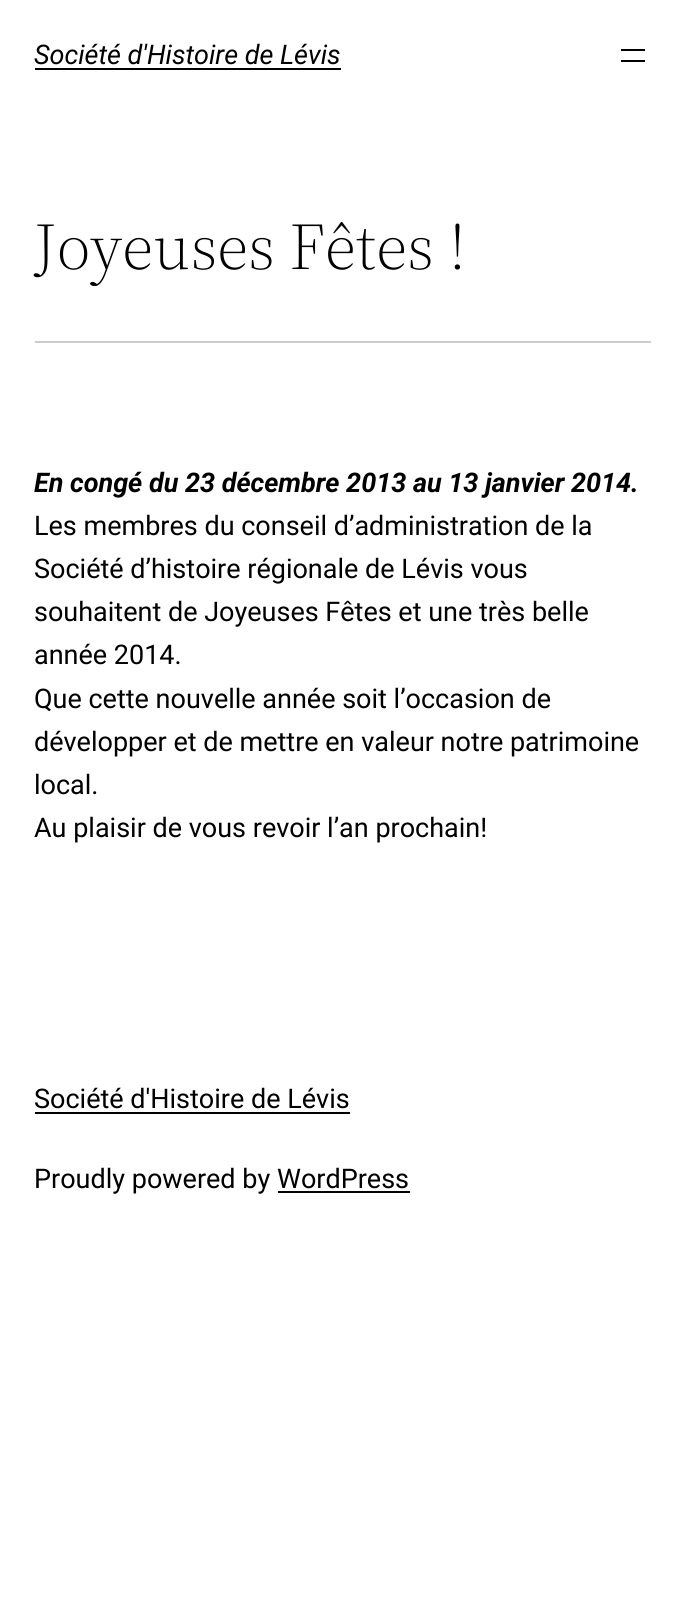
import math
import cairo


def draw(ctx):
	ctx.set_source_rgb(1, 1, 1)
	ctx.paint()
	ctx.select_font_face('Roboto', cairo.FONT_SLANT_ITALIC)
	ctx.set_font_size(27)
	ctx.set_source_rgb(0, 0, 0)
	ctx.move_to(34, 64)
	ctx.show_text('Société d\'Histoire de Lévis')
	ctx.rectangle(35, 68, 306, 2)
	ctx.rectangle(621, 49, 24, 2)
	ctx.rectangle(621, 60, 24, 2)
	ctx.fill()
	ctx.select_font_face('Source Serif 4 Light')
	ctx.set_font_size(66)
	ctx.move_to(34, 269)
	ctx.show_text('Joyeuses Fêtes !')
	ctx.set_source_rgb(0.8, 0.8, 0.8)
	ctx.rectangle(35, 341, 616, 2)
	ctx.fill()
	ctx.select_font_face('Roboto', cairo.FONT_SLANT_ITALIC, cairo.FONT_WEIGHT_BOLD)
	ctx.set_font_size(27)
	ctx.set_source_rgb(0, 0, 0)
	ctx.move_to(34, 492)
	ctx.show_text('En congé du 23 décembre 2013 au 13 janvier 2014.')
	ctx.select_font_face('Roboto')
	for x, y, s in [
		(34, 535, 'Les membres du conseil d’administration de la'),
		(34, 578, 'Société d’histoire régionale de Lévis vous'),
		(34, 621, 'souhaitent de Joyeuses Fêtes et une très belle'),
		(34, 664, 'année 2014.'),
		(34, 708, 'Que cette nouvelle année soit l’occasion de'),
		(34, 751, 'développer et de mettre en valeur notre patrimoine'),
		(34, 794, 'local.'),
		(34, 837, 'Au plaisir de vous revoir l’an prochain!'),
		(34, 1108, 'Société d\'Histoire de Lévis'),
	]:
		ctx.move_to(x, y)
		ctx.show_text(s)
	ctx.rectangle(35, 1112, 315, 2)
	ctx.fill()
	ctx.move_to(34, 1188)
	ctx.show_text('Proudly powered by WordPress')
	ctx.rectangle(278, 1191, 132, 2)
	ctx.fill()


surface = cairo.ImageSurface(cairo.FORMAT_RGB24, 685, 1608)
ctx = cairo.Context(surface)
options = cairo.FontOptions()
options.set_hint_metrics(cairo.HINT_METRICS_OFF)
options.set_hint_style(cairo.HINT_STYLE_NONE)
ctx.set_font_options(options)
ctx.set_miter_limit(4)
draw(ctx)
surface.write_to_png('image.png')
